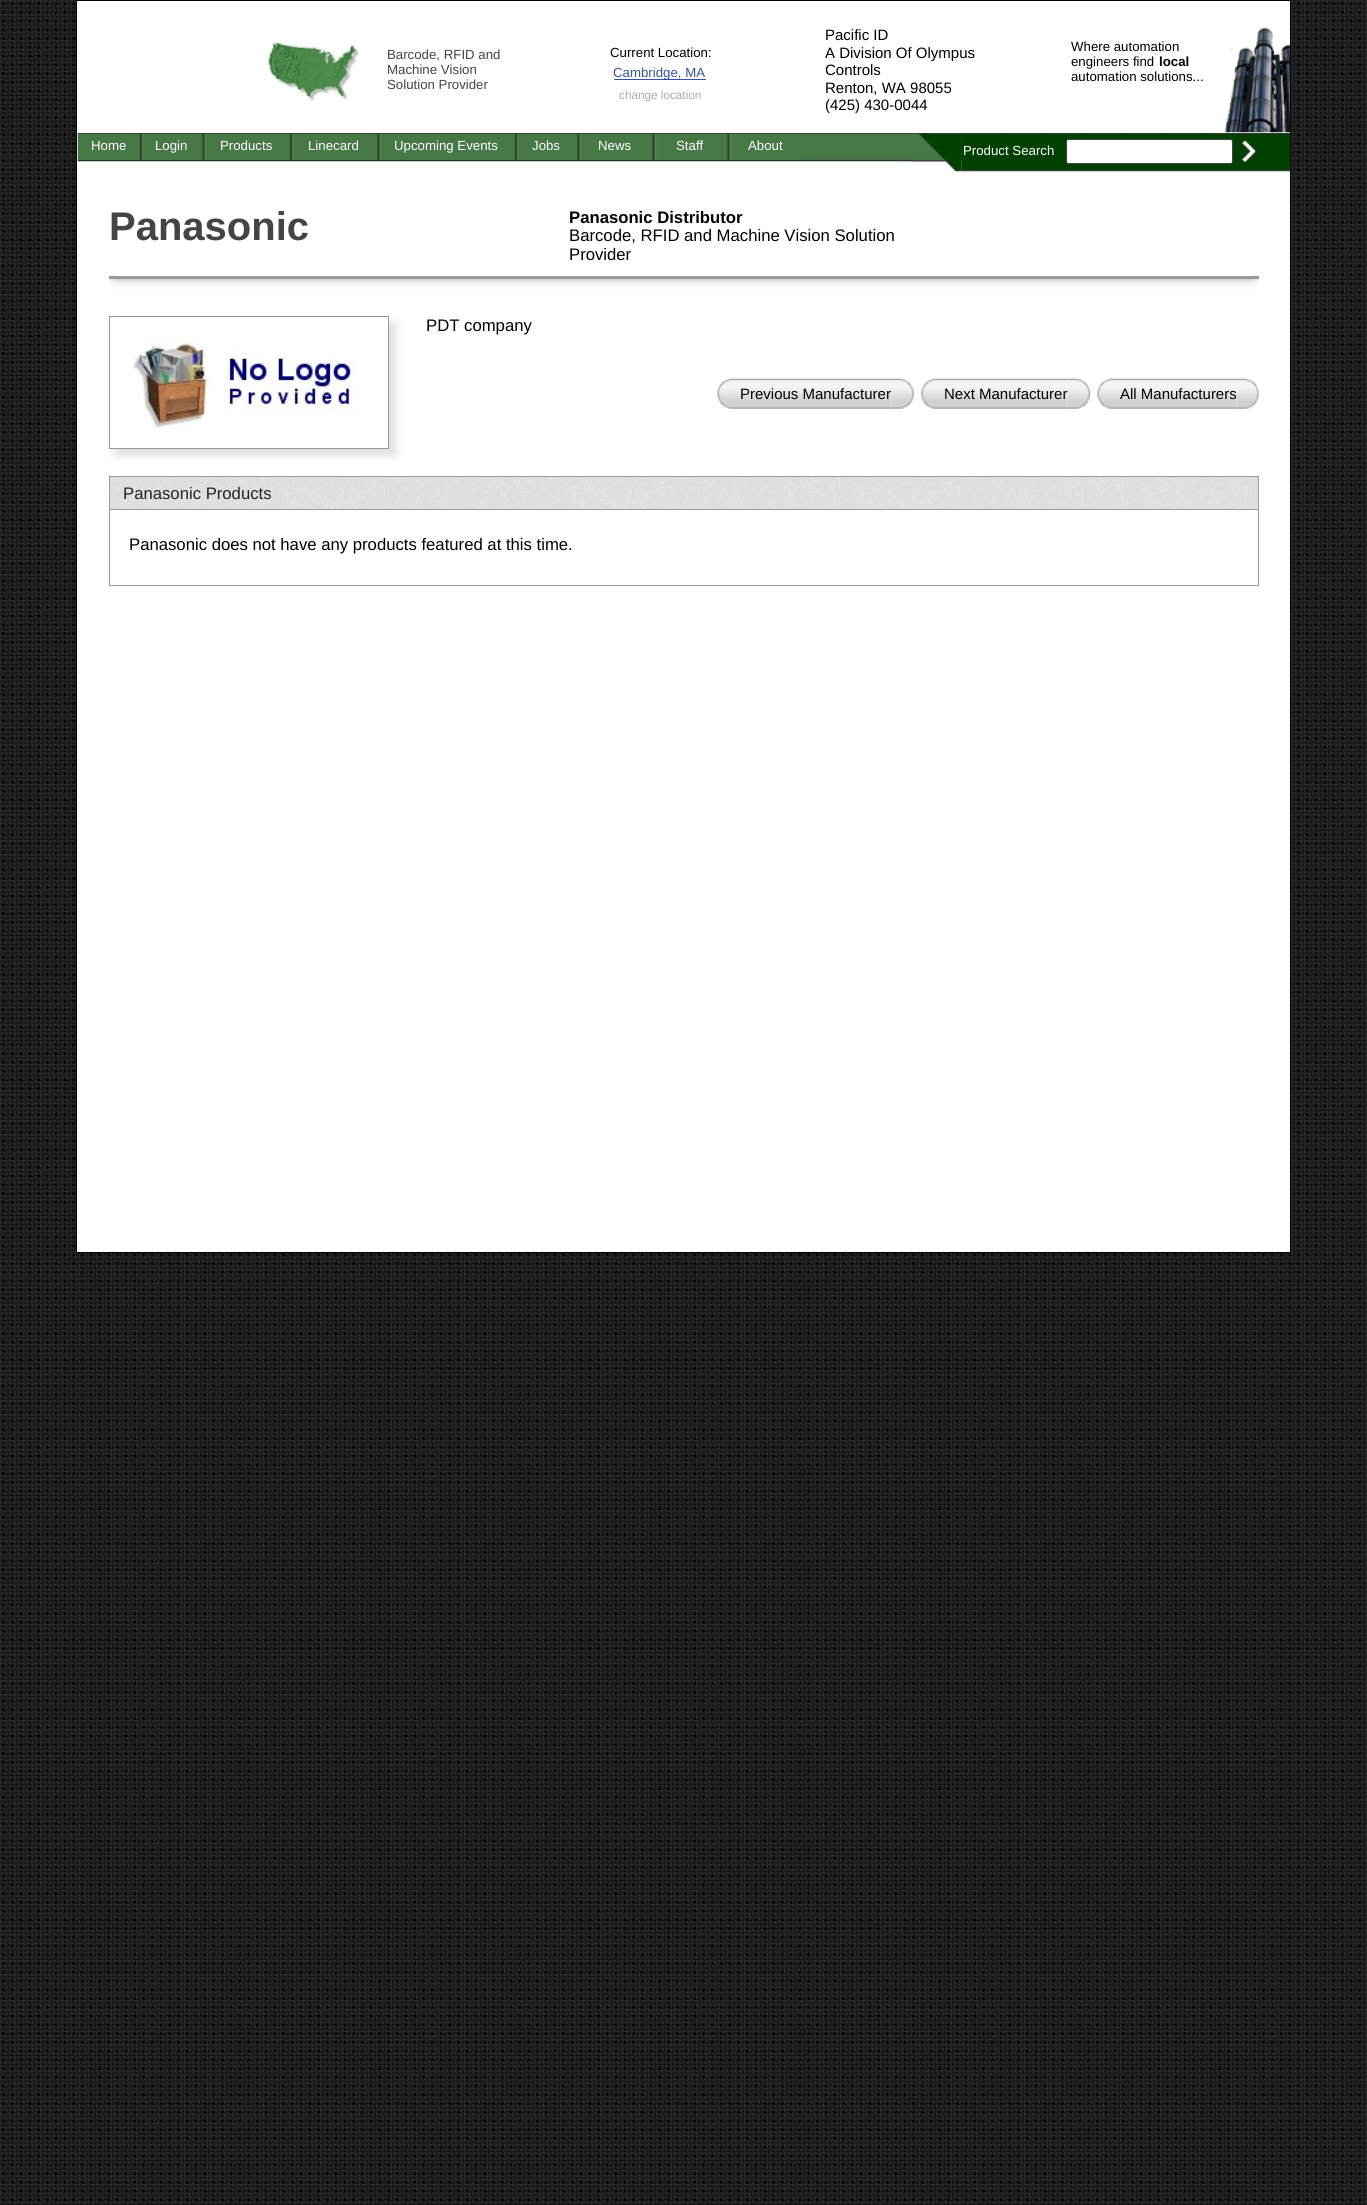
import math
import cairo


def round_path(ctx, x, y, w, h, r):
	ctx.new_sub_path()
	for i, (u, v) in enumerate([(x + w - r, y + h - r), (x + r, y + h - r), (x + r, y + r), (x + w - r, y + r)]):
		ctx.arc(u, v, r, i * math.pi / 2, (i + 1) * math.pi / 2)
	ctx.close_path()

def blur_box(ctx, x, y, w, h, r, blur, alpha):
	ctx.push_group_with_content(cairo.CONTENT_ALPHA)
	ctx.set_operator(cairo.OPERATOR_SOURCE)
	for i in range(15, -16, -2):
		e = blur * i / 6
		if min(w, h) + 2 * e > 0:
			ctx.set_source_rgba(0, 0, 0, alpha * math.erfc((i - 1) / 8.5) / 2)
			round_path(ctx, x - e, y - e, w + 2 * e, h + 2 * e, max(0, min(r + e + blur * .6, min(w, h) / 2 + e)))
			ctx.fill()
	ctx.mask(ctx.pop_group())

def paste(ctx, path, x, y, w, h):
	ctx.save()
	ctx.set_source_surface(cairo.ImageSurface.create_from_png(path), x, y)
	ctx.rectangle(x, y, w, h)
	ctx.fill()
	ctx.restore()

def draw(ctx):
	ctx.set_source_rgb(1, 1, 1)
	ctx.paint()
	paste(ctx, 'media/1.png', 0, 0, 1367, 2205)
	ctx.set_source_rgb(1, 1, 1)
	ctx.rectangle(76.5, 0.5, 1214, 1252)
	ctx.fill_preserve()
	ctx.set_source_rgb(0, 0, 0)
	ctx.set_line_width(1)
	ctx.stroke()
	paste(ctx, 'media/4.png', 77, 132, 885, 30)
	ctx.set_source_rgb(1, 1, 1)
	ctx.rectangle(78, 132, 884, 1)
	ctx.fill()
	paste(ctx, 'media/2.png', 266, 41, 93, 60)
	ctx.select_font_face('Liberation Sans')
	ctx.set_font_size(13.25)
	ctx.set_source_rgb(0.267, 0.267, 0.267)
	for x, y, s in [
		(387, 59, 'Barcode, RFID and'),
		(387, 74, 'Machine Vision'),
		(387, 89, 'Solution Provider'),
	]:
		ctx.move_to(x, y)
		ctx.show_text(s)
	ctx.set_source_rgb(0, 0, 0)
	ctx.move_to(610, 57)
	ctx.show_text('Current Location:')
	ctx.set_source_rgb(0.2, 0.333, 0.6)
	ctx.rectangle(614, 79, 92, 1)
	ctx.fill()
	ctx.move_to(613, 77)
	ctx.show_text('Cambridge, MA')
	ctx.set_font_size(11.75)
	ctx.set_source_rgb(0.667, 0.667, 0.667)
	ctx.move_to(619, 99)
	ctx.show_text('change location')
	ctx.set_font_size(15)
	ctx.set_source_rgb(0, 0, 0)
	for x, y, s in [
		(825, 40, 'Pacific ID'),
		(825, 58, 'A Division Of Olympus'),
		(825, 75, 'Controls'),
		(825, 93, 'Renton, WA 98055'),
		(825, 110, '(425) 430-0044'),
	]:
		ctx.move_to(x, y)
		ctx.show_text(s)
	paste(ctx, 'media/3.png', 1224, 27, 66, 106)
	ctx.set_font_size(13.25)
	ctx.move_to(1071, 51)
	ctx.show_text('Where automation')
	ctx.move_to(1071, 66)
	ctx.show_text('engineers find')
	ctx.select_font_face('Liberation Sans', cairo.FONT_SLANT_NORMAL, cairo.FONT_WEIGHT_BOLD)
	ctx.move_to(1159, 66)
	ctx.show_text('local')
	ctx.select_font_face('Liberation Sans')
	ctx.move_to(1071, 81)
	ctx.show_text('automation solutions...')
	ctx.set_source_rgb(0.278, 0.475, 0.278)
	ctx.rectangle(78, 134, 62, 26)
	ctx.fill()
	ctx.set_source_rgb(1, 1, 1)
	ctx.move_to(91, 150)
	ctx.show_text('Home')
	ctx.set_source_rgb(0.278, 0.475, 0.278)
	ctx.rectangle(143, 134, 60, 26)
	ctx.fill()
	paste(ctx, 'media/5.png', 140, 133, 4, 27)
	ctx.set_source_rgb(1, 1, 1)
	ctx.move_to(155, 150)
	ctx.show_text('Login')
	ctx.set_source_rgb(0.278, 0.475, 0.278)
	ctx.rectangle(206, 134, 84, 26)
	ctx.fill()
	paste(ctx, 'media/6.png', 202, 133, 5, 27)
	ctx.set_source_rgb(1, 1, 1)
	ctx.move_to(220, 150)
	ctx.show_text('Products')
	ctx.set_source_rgb(0.278, 0.475, 0.278)
	ctx.rectangle(293, 134, 85, 26)
	ctx.fill()
	paste(ctx, 'media/7.png', 290, 133, 4, 27)
	ctx.set_source_rgb(1, 1, 1)
	ctx.move_to(308, 150)
	ctx.show_text('Linecard')
	ctx.set_source_rgb(0.278, 0.475, 0.278)
	ctx.rectangle(381, 134, 134, 26)
	ctx.fill()
	paste(ctx, 'media/6.png', 377, 133, 5, 27)
	ctx.set_source_rgb(1, 1, 1)
	ctx.move_to(394, 150)
	ctx.show_text('Upcoming Events')
	ctx.set_source_rgb(0.278, 0.475, 0.278)
	ctx.rectangle(518, 134, 60, 26)
	ctx.fill()
	paste(ctx, 'media/5.png', 515, 133, 4, 27)
	ctx.set_source_rgb(1, 1, 1)
	ctx.move_to(532, 150)
	ctx.show_text('Jobs')
	ctx.set_source_rgb(0.278, 0.475, 0.278)
	ctx.rectangle(581, 134, 72, 26)
	ctx.fill()
	paste(ctx, 'media/6.png', 577, 133, 5, 27)
	ctx.set_source_rgb(1, 1, 1)
	ctx.move_to(598, 150)
	ctx.show_text('News')
	ctx.set_source_rgb(0.278, 0.475, 0.278)
	ctx.rectangle(656, 134, 72, 26)
	ctx.fill()
	paste(ctx, 'media/6.png', 652, 133, 5, 27)
	ctx.set_source_rgb(1, 1, 1)
	ctx.move_to(676, 150)
	ctx.show_text('Staff')
	ctx.set_source_rgb(0.278, 0.475, 0.278)
	ctx.rectangle(731, 134, 72, 26)
	ctx.fill()
	paste(ctx, 'media/6.png', 727, 133, 5, 27)
	ctx.set_source_rgb(1, 1, 1)
	ctx.move_to(748, 150)
	ctx.show_text('About')
	paste(ctx, 'media/9.png', 961, 133, 329, 39)
	paste(ctx, 'media/8.png', 911, 133, 51, 39)
	ctx.move_to(963, 155)
	ctx.show_text('Product Search')
	round_path(ctx, 1066.5, 139.5, 166, 24, 2)
	ctx.fill_preserve()
	ctx.set_source_rgb(0.267, 0.267, 0.267)
	ctx.stroke()
	paste(ctx, 'media/10.png', 1240, 139, 17, 25)
	ctx.save()
	ctx.rectangle(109, 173, 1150, 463)
	ctx.clip()
	ctx.set_fill_rule(cairo.FILL_RULE_EVEN_ODD)
	ctx.new_path()
	ctx.move_to(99, 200)
	ctx.line_to(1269, 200)
	ctx.line_to(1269, 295)
	ctx.line_to(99, 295)
	ctx.close_path()
	ctx.move_to(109, 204)
	ctx.line_to(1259, 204)
	ctx.line_to(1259, 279)
	ctx.line_to(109, 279)
	ctx.close_path()
	ctx.clip()
	ctx.set_source_rgb(0.667, 0.667, 0.667)
	blur_box(ctx, 115, 216, 1138, 63, 0, 5, 1)
	ctx.restore()
	ctx.set_source_rgb(0.6, 0.6, 0.6)
	ctx.rectangle(109, 276, 1150, 3)
	ctx.fill()
	ctx.select_font_face('Liberation Sans', cairo.FONT_SLANT_NORMAL, cairo.FONT_WEIGHT_BOLD)
	ctx.set_font_size(40)
	ctx.set_source_rgb(0.267, 0.267, 0.267)
	ctx.move_to(109, 240)
	ctx.show_text('Panasonic')
	ctx.set_font_size(16.7)
	ctx.set_source_rgb(0, 0, 0)
	ctx.move_to(569, 223)
	ctx.show_text('Panasonic Distributor')
	ctx.select_font_face('Liberation Sans')
	ctx.move_to(569, 241)
	ctx.show_text('Barcode, RFID and Machine Vision Solution')
	ctx.move_to(569, 260)
	ctx.show_text('Provider')
	ctx.save()
	ctx.rectangle(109, 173, 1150, 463)
	ctx.clip()
	ctx.set_fill_rule(cairo.FILL_RULE_EVEN_ODD)
	ctx.new_path()
	ctx.move_to(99, 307)
	ctx.line_to(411, 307)
	ctx.line_to(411, 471)
	ctx.line_to(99, 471)
	ctx.close_path()
	ctx.move_to(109, 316)
	ctx.line_to(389, 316)
	ctx.line_to(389, 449)
	ctx.line_to(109, 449)
	ctx.close_path()
	ctx.clip()
	ctx.set_source_rgb(0.867, 0.867, 0.867)
	blur_box(ctx, 115, 323, 280, 132, 0, 5, 1)
	ctx.restore()
	ctx.rectangle(109.5, 316.5, 279, 132)
	ctx.set_source_rgb(0.6, 0.6, 0.6)
	ctx.stroke()
	paste(ctx, 'media/11.png', 132, 338, 232, 93)
	ctx.set_source_rgb(0, 0, 0)
	ctx.move_to(426, 331)
	ctx.show_text('PDT company')
	paste(ctx, 'media/12.png', 891, 378, 23, 31)
	paste(ctx, 'media/13.png', 717, 378, 175, 31)
	ctx.set_font_size(15)
	ctx.move_to(740, 399)
	ctx.show_text('Previous Manufacturer')
	paste(ctx, 'media/14.png', 1067, 378, 23, 31)
	paste(ctx, 'media/15.png', 921, 378, 147, 31)
	ctx.move_to(944, 399)
	ctx.show_text('Next Manufacturer')
	paste(ctx, 'media/16.png', 1236, 378, 23, 31)
	paste(ctx, 'media/17.png', 1097, 378, 140, 31)
	ctx.move_to(1120, 399)
	ctx.show_text('All Manufacturers')
	paste(ctx, 'media/18.png', 110, 477, 1148, 32)
	ctx.rectangle(109.5, 476.5, 1149, 33)
	ctx.set_source_rgb(0.6, 0.6, 0.6)
	ctx.stroke()
	ctx.set_font_size(16.7)
	ctx.set_source_rgb(0.133, 0.133, 0.133)
	ctx.move_to(123, 499)
	ctx.show_text('Panasonic Products')
	ctx.set_source_rgb(0.6, 0.6, 0.6)
	ctx.rectangle(1258, 510, 1, 76)
	ctx.rectangle(109, 585, 1150, 1)
	ctx.rectangle(109, 510, 1, 76)
	ctx.fill()
	ctx.set_source_rgb(0, 0, 0)
	ctx.move_to(129, 550)
	ctx.show_text('Panasonic does not have any products featured at this time.')


surface = cairo.ImageSurface(cairo.FORMAT_RGB24, 1367, 2205)
ctx = cairo.Context(surface)
options = cairo.FontOptions()
options.set_hint_metrics(cairo.HINT_METRICS_OFF)
options.set_hint_style(cairo.HINT_STYLE_NONE)
ctx.set_font_options(options)
ctx.set_miter_limit(4)
draw(ctx)
surface.write_to_png('image.png')
